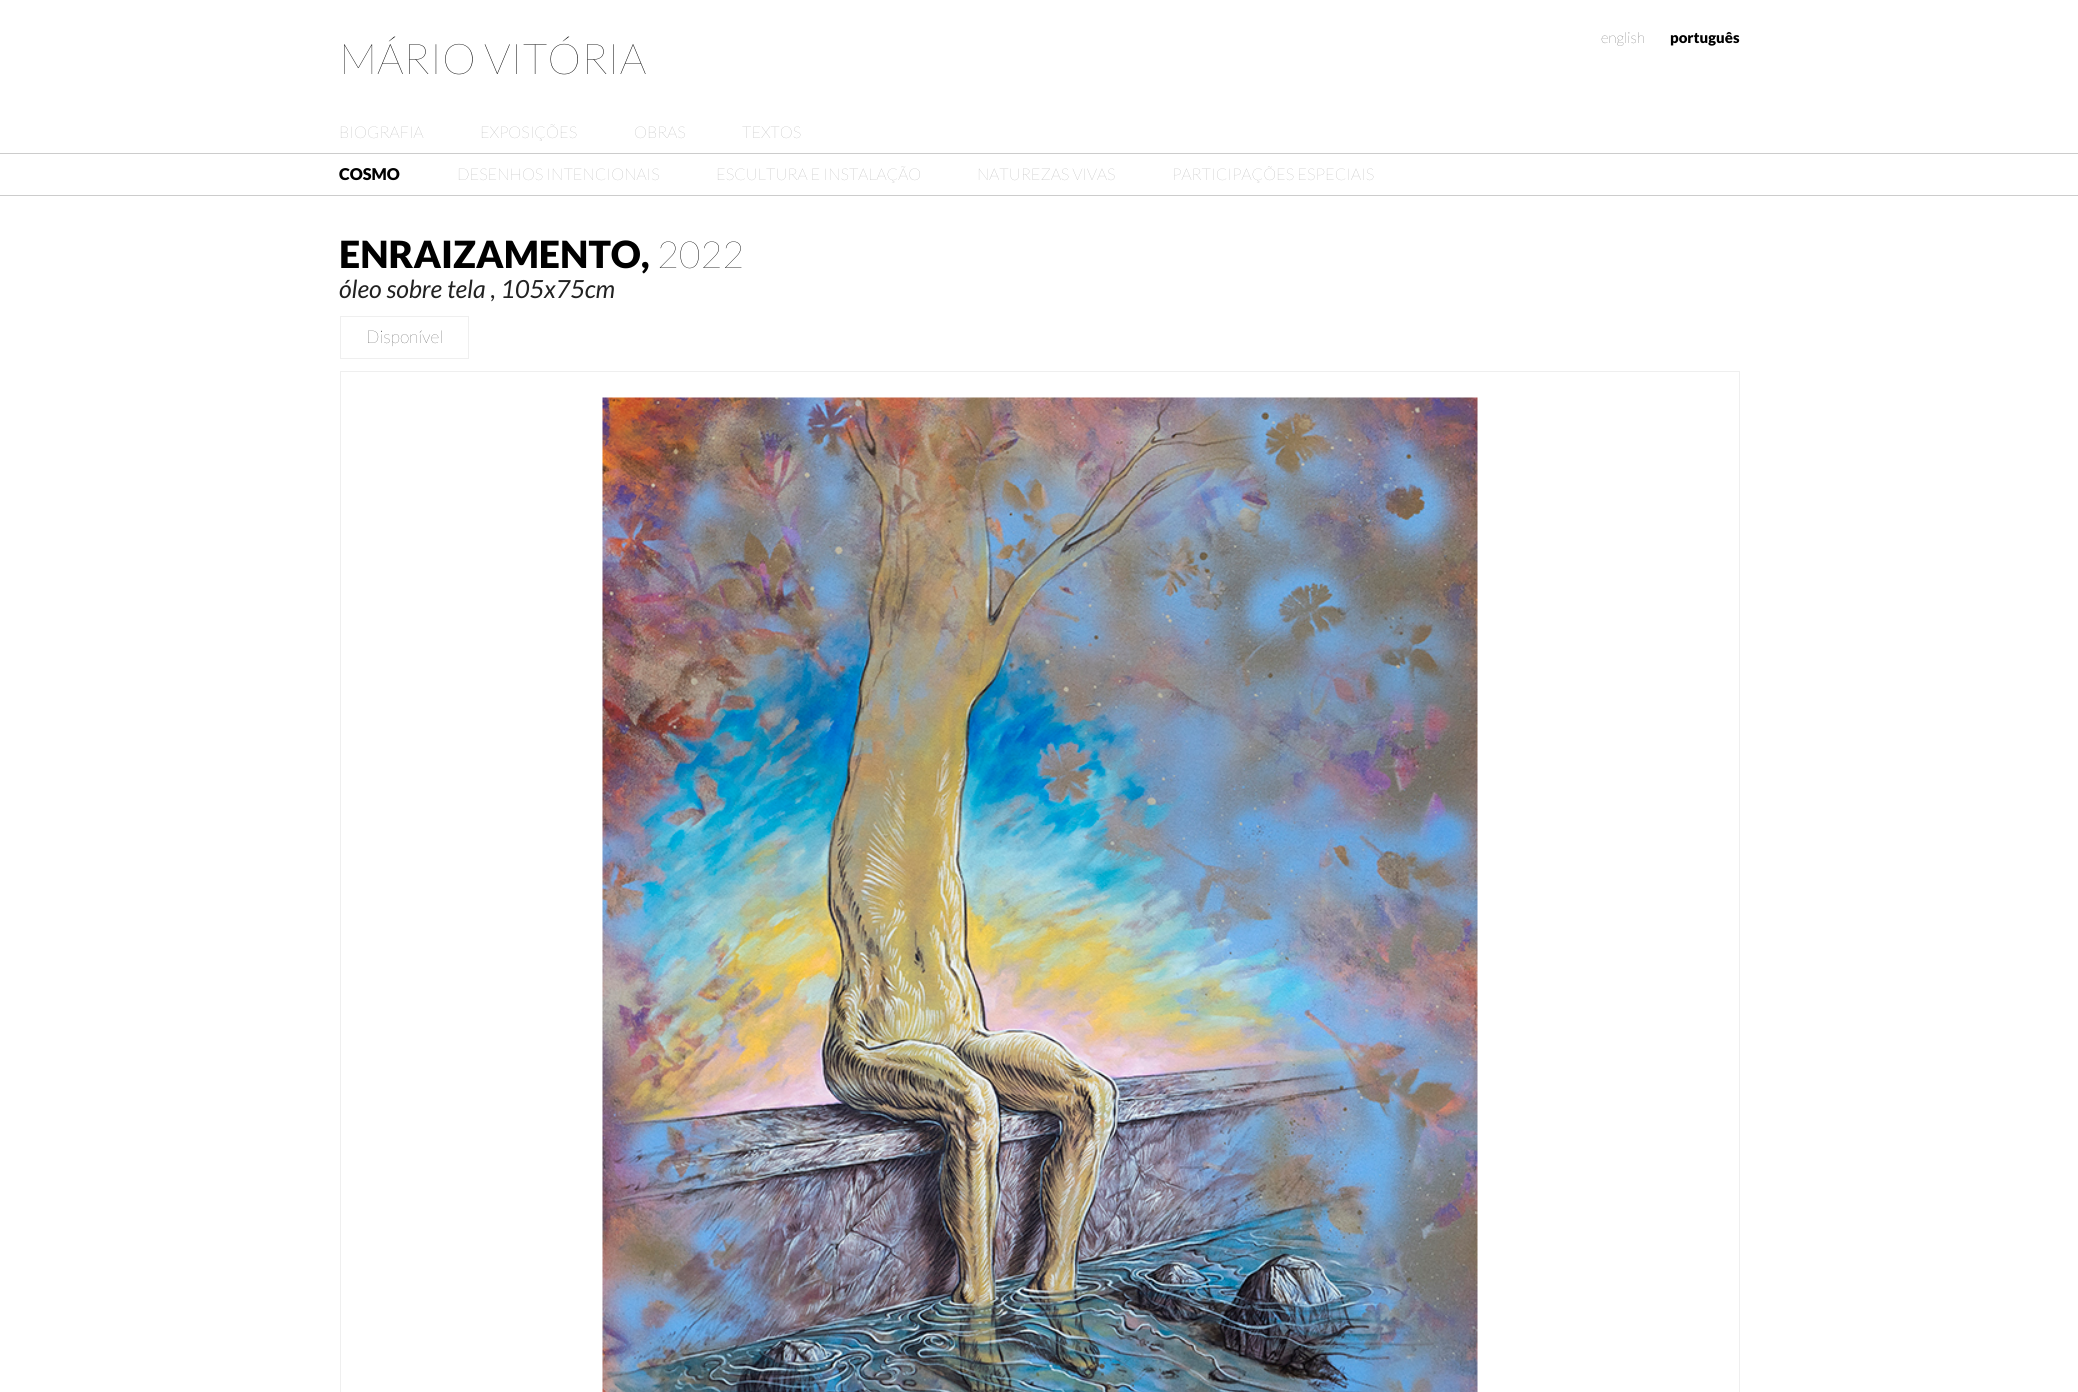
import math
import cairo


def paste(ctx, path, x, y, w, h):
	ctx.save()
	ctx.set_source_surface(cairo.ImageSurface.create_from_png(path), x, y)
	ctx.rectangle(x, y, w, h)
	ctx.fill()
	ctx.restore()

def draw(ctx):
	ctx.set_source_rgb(1, 1, 1)
	ctx.paint()
	ctx.select_font_face('Lato Thin')
	ctx.set_font_size(42.5)
	ctx.set_source_rgb(0, 0, 0)
	ctx.move_to(339, 74)
	ctx.show_text('MÁRIO VITÓRIA')
	ctx.set_font_size(15)
	ctx.move_to(1601, 43)
	ctx.show_text('english')
	ctx.select_font_face('Lato Black')
	ctx.move_to(1670, 43)
	ctx.show_text('português')
	ctx.set_source_rgb(0.8, 0.8, 0.8)
	ctx.rectangle(0, 153, 2078, 1)
	ctx.fill()
	ctx.select_font_face('Lato Thin')
	ctx.set_font_size(16.25)
	ctx.set_source_rgb(0.533, 0.533, 0.533)
	for x, y, s in [
		(339, 138, 'BIOGRAFIA'),
		(480, 138, 'EXPOSIÇÕES'),
		(634, 138, 'OBRAS'),
		(742, 138, 'TEXTOS'),
	]:
		ctx.move_to(x, y)
		ctx.show_text(s)
	ctx.set_source_rgb(0.8, 0.8, 0.8)
	ctx.rectangle(0, 195, 2078, 1)
	ctx.fill()
	ctx.select_font_face('Lato Black')
	ctx.set_source_rgb(0, 0, 0)
	ctx.move_to(339, 180)
	ctx.show_text('COSMO')
	ctx.select_font_face('Lato Thin')
	ctx.set_source_rgb(0.533, 0.533, 0.533)
	for x, y, s in [
		(457, 180, 'DESENHOS INTENCIONAIS'),
		(716, 180, 'ESCULTURA E INSTALAÇÃO'),
		(977, 180, 'NATUREZAS VIVAS'),
		(1172, 180, 'PARTICIPAÇÕES ESPECIAIS'),
	]:
		ctx.move_to(x, y)
		ctx.show_text(s)
	ctx.select_font_face('Lato Black')
	ctx.set_font_size(37.5)
	ctx.set_source_rgb(0, 0, 0)
	ctx.move_to(339, 268)
	ctx.show_text('ENRAIZAMENTO,')
	ctx.select_font_face('Lato Thin')
	ctx.move_to(657, 268)
	ctx.show_text('2022')
	ctx.select_font_face('Lato', cairo.FONT_SLANT_ITALIC)
	ctx.set_font_size(25)
	ctx.set_source_rgb(0.133, 0.133, 0.133)
	ctx.move_to(339, 298)
	ctx.show_text('óleo sobre tela , 105x75cm')
	ctx.rectangle(340.5, 316.5, 128, 42)
	ctx.set_source_rgb(0.937, 0.937, 0.937)
	ctx.set_line_width(1)
	ctx.stroke()
	ctx.select_font_face('Lato Thin')
	ctx.set_font_size(17.5)
	ctx.set_source_rgb(0, 0, 0)
	ctx.move_to(366, 343)
	ctx.show_text('Disponível')
	ctx.rectangle(340.5, 371.5, 1399, 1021)
	ctx.set_source_rgb(0.937, 0.937, 0.937)
	ctx.stroke()
	paste(ctx, 'media/1.png', 602, 397, 876, 995)


surface = cairo.ImageSurface(cairo.FORMAT_RGB24, 2078, 1392)
ctx = cairo.Context(surface)
options = cairo.FontOptions()
options.set_hint_metrics(cairo.HINT_METRICS_OFF)
options.set_hint_style(cairo.HINT_STYLE_NONE)
ctx.set_font_options(options)
ctx.set_miter_limit(4)
draw(ctx)
surface.write_to_png('image.png')
